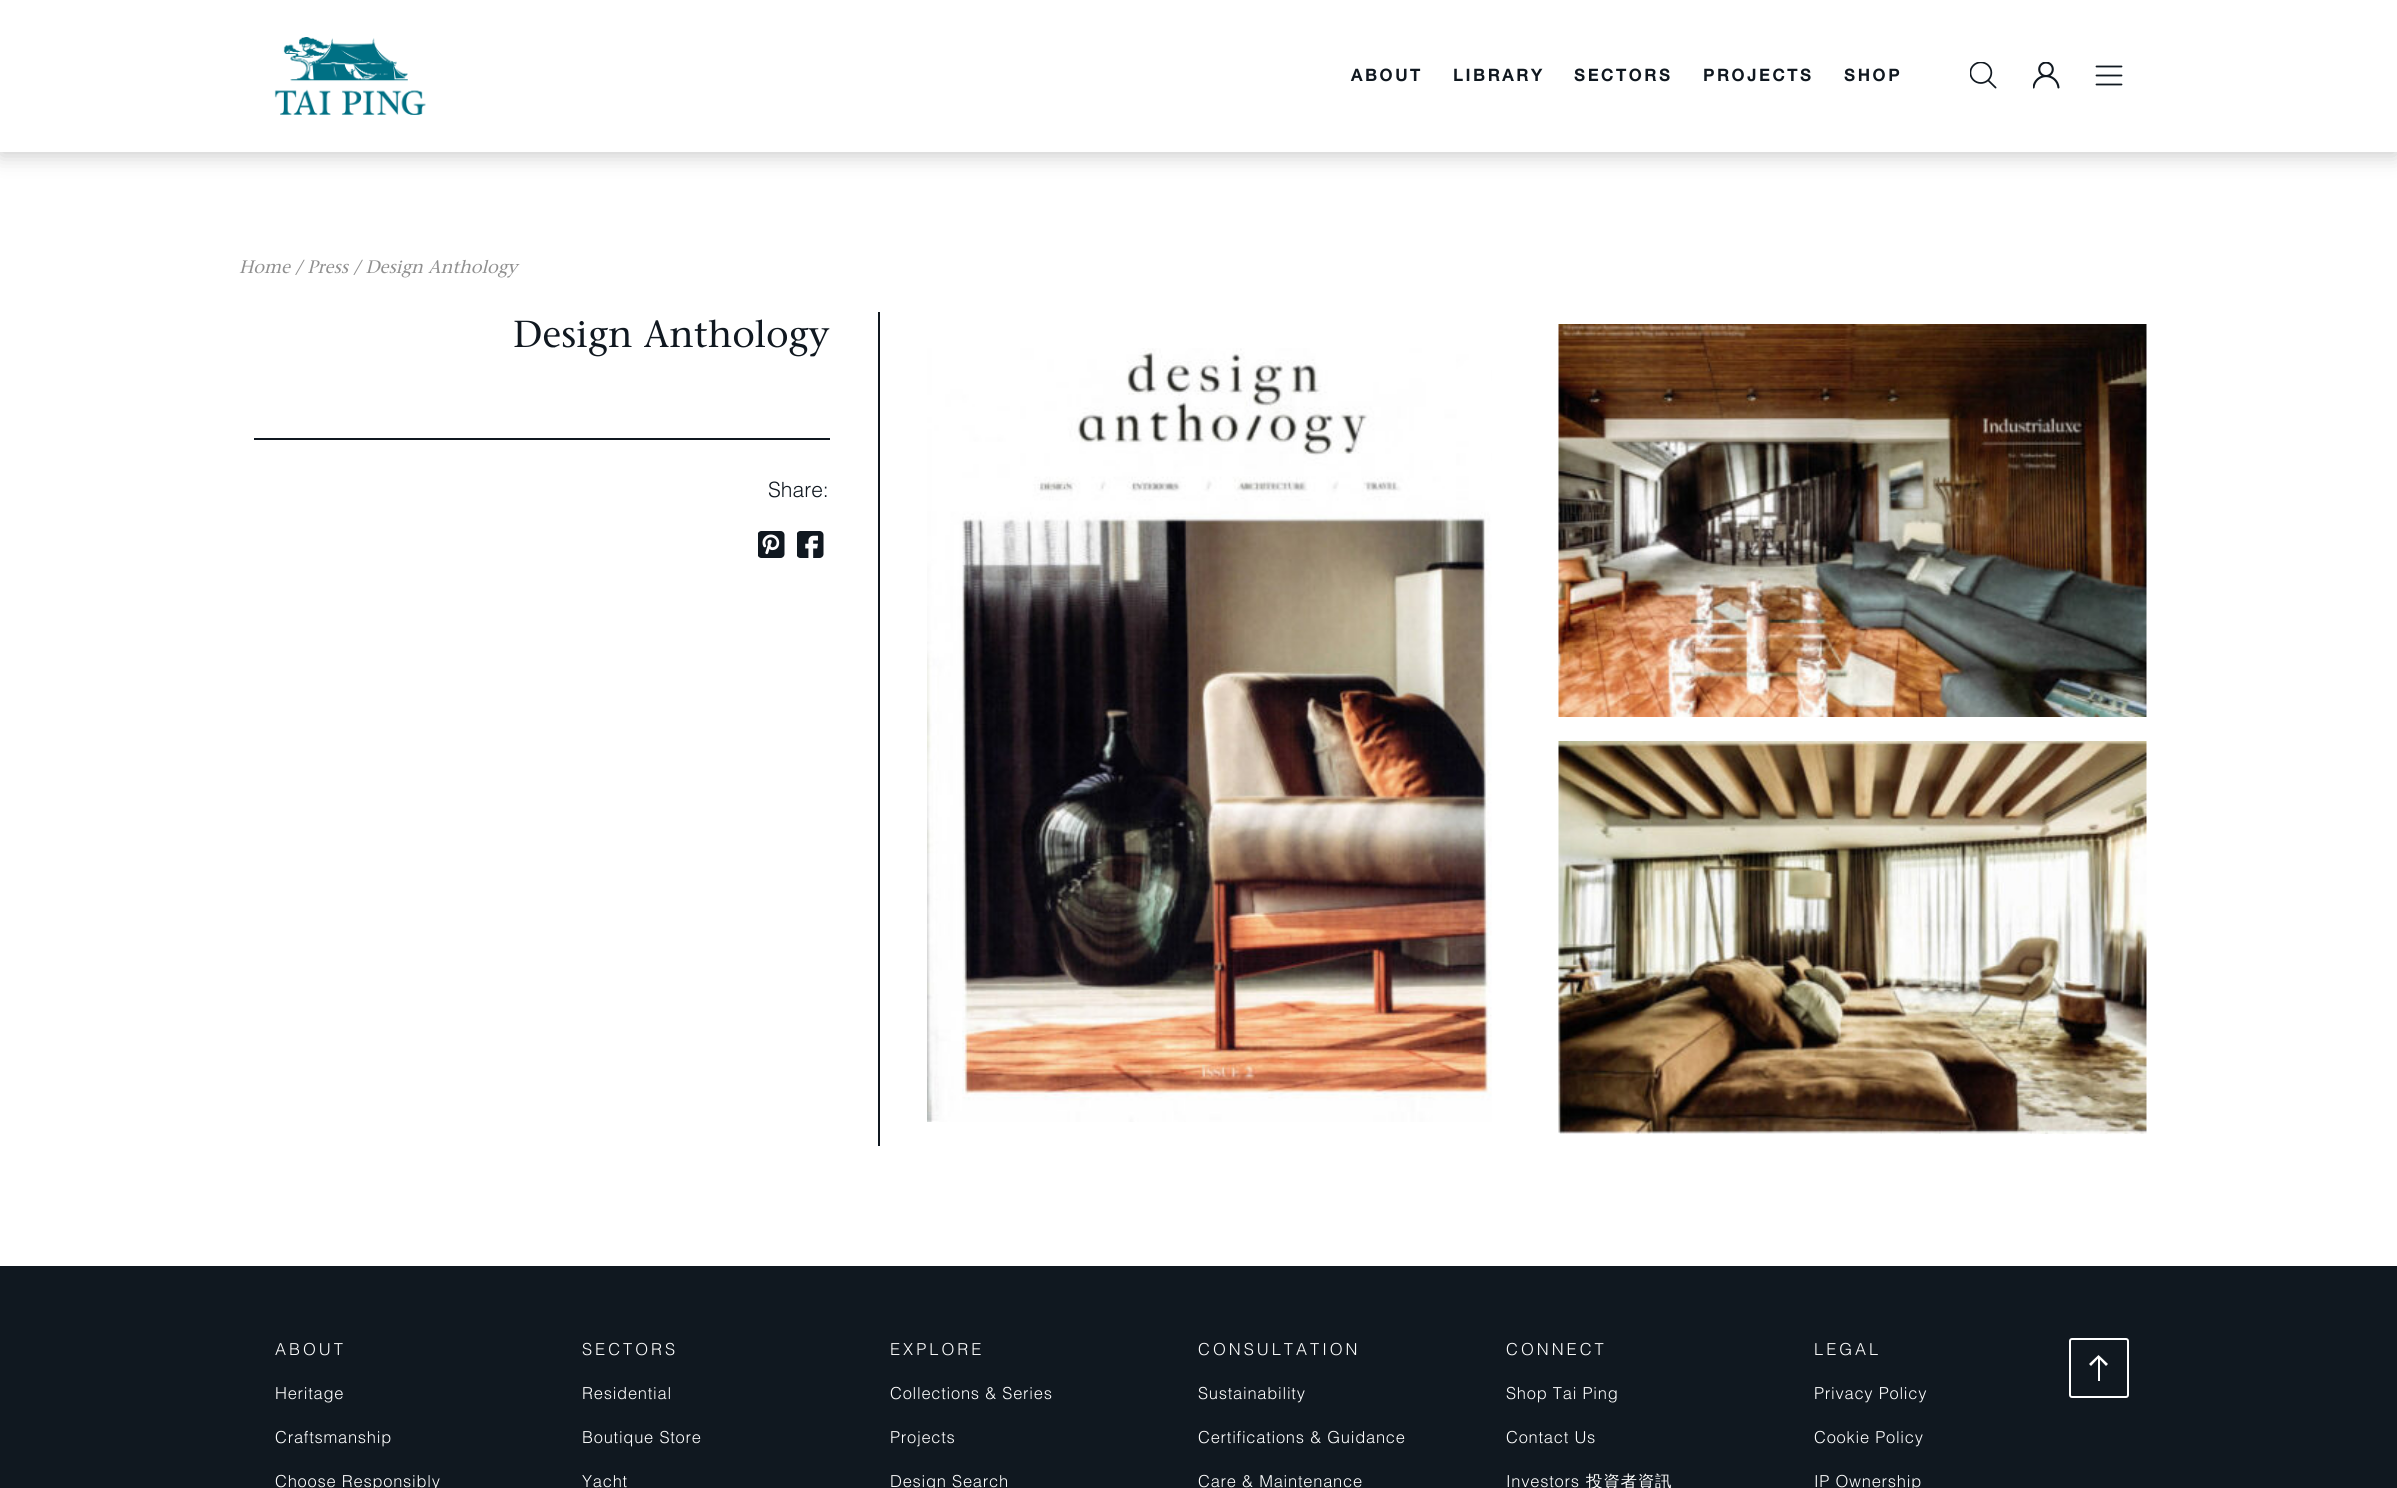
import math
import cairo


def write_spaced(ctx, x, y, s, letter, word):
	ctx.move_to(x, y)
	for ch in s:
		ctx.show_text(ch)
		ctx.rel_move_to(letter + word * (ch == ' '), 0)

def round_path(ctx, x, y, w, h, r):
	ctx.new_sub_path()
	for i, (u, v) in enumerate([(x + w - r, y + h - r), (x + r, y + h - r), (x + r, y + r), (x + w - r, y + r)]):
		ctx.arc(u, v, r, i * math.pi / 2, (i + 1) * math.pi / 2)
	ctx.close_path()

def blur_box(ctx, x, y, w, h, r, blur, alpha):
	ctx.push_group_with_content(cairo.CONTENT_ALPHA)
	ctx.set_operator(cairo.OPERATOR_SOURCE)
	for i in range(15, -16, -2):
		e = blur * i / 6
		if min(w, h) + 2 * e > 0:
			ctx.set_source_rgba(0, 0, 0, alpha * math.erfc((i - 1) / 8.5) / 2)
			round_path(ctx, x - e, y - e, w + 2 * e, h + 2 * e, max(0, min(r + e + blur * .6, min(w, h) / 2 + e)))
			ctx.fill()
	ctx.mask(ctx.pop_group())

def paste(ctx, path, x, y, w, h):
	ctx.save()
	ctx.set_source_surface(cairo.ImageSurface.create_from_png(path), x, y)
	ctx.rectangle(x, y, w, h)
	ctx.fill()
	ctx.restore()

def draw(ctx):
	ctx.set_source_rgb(1, 1, 1)
	ctx.paint()
	ctx.set_source_rgb(0, 0, 0)
	blur_box(ctx, 0, 5, 2397, 151, 0, 10.5, 0.2)
	ctx.set_source_rgb(1, 1, 1)
	ctx.rectangle(0, 0, 2397, 152)
	ctx.fill()
	paste(ctx, 'media/1.png', 274, 37, 152, 78)
	ctx.select_font_face('Helvetica Neue', cairo.FONT_SLANT_NORMAL, cairo.FONT_WEIGHT_BOLD)
	ctx.set_font_size(16.5)
	ctx.set_source_rgb(0.063, 0.094, 0.125)
	for x, y, s in [
		(1351, 81, 'ABOUT'),
		(1453, 81, 'LIBRARY'),
		(1574, 81, 'SECTORS'),
		(1703, 81, 'PROJECTS'),
		(1844, 81, 'SHOP'),
	]:
		write_spaced(ctx, x, y, s, 3, 0)
	paste(ctx, 'media/2.png', 1970, 62, 27, 27)
	paste(ctx, 'media/3.png', 2033, 62, 27, 27)
	ctx.new_path()
	ctx.move_to(2096.5, 84.5)
	ctx.line_to(2121.5, 84.5)
	ctx.move_to(2096.5, 75.5)
	ctx.line_to(2121.5, 75.5)
	ctx.move_to(2096.5, 66.5)
	ctx.line_to(2121.5, 66.5)
	ctx.set_line_width(1.8)
	ctx.set_line_cap(cairo.LINE_CAP_ROUND)
	ctx.stroke()
	ctx.select_font_face('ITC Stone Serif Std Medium', cairo.FONT_SLANT_ITALIC)
	ctx.set_font_size(18)
	ctx.set_source_rgb(0.565, 0.565, 0.565)
	ctx.move_to(239, 273)
	ctx.show_text('Home / Press / Design Anthology')
	ctx.set_source_rgb(0.063, 0.094, 0.125)
	ctx.rectangle(878, 312, 2, 834)
	ctx.fill()
	ctx.select_font_face('ITC Stone Serif Std Medium')
	ctx.set_font_size(37.5)
	ctx.move_to(513, 347)
	ctx.show_text('Design Anthology')
	ctx.rectangle(254, 438, 576, 2)
	ctx.fill()
	ctx.select_font_face('Helvetica Light')
	ctx.set_font_size(21)
	ctx.move_to(768, 497)
	ctx.show_text('Share:')
	paste(ctx, 'media/4.png', 758, 531, 27, 27)
	paste(ctx, 'media/5.png', 797, 531, 27, 27)
	paste(ctx, 'media/6.png', 927, 348, 565, 774)
	paste(ctx, 'media/7.png', 1558, 324, 589, 393)
	paste(ctx, 'media/8.png', 1558, 741, 589, 393)
	ctx.rectangle(0, 1266, 2397, 222)
	ctx.fill()
	ctx.set_font_size(16.5)
	ctx.set_source_rgb(1, 1, 1)
	write_spaced(ctx, 275, 1355, 'ABOUT', 3, 0)
	for x, y, s in [
		(275, 1399, 'Heritage'),
		(275, 1443, 'Craftsmanship'),
		(275, 1487, 'Choose Responsibly'),
	]:
		write_spaced(ctx, x, y, s, 0.75, 0)
	write_spaced(ctx, 582, 1355, 'SECTORS', 3, 0)
	for x, y, s in [
		(582, 1399, 'Residential'),
		(582, 1443, 'Boutique Store'),
		(582, 1487, 'Yacht'),
	]:
		write_spaced(ctx, x, y, s, 0.75, 0)
	write_spaced(ctx, 890, 1355, 'EXPLORE', 3, 0)
	for x, y, s in [
		(890, 1399, 'Collections & Series'),
		(890, 1443, 'Projects'),
		(890, 1487, 'Design Search'),
	]:
		write_spaced(ctx, x, y, s, 0.75, 0)
	write_spaced(ctx, 1198, 1355, 'CONSULTATION', 3, 0)
	for x, y, s in [
		(1198, 1399, 'Sustainability'),
		(1198, 1443, 'Certifications & Guidance'),
		(1198, 1487, 'Care & Maintenance'),
	]:
		write_spaced(ctx, x, y, s, 0.75, 0)
	write_spaced(ctx, 1506, 1355, 'CONNECT', 3, 0)
	for x, y, s in [
		(1506, 1399, 'Shop Tai Ping'),
		(1506, 1443, 'Contact Us'),
		(1506, 1487, 'Investors'),
	]:
		write_spaced(ctx, x, y, s, 0.75, 0)
	ctx.select_font_face('WenQuanYi Zen Hei Medium')
	write_spaced(ctx, 1586, 1487, '投資者資訊', 0.75, 0)
	ctx.select_font_face('Helvetica Light')
	write_spaced(ctx, 1814, 1355, 'LEGAL', 3, 0)
	for x, y, s in [
		(1814, 1399, 'Privacy Policy'),
		(1814, 1443, 'Cookie Policy'),
		(1814, 1487, 'IP Ownership'),
	]:
		write_spaced(ctx, x, y, s, 0.75, 0)
	round_path(ctx, 2070, 1339, 58, 58, 2)
	ctx.set_line_width(2)
	ctx.set_line_cap(cairo.LINE_CAP_BUTT)
	ctx.stroke()
	ctx.rectangle(2098, 1357, 2, 24)
	ctx.fill()
	ctx.new_path()
	ctx.move_to(2098.5, 1358)
	ctx.line_to(2091, 1366)
	ctx.line_to(2089, 1364)
	ctx.line_to(2098.5, 1355)
	ctx.line_to(2108, 1364)
	ctx.line_to(2106, 1366)
	ctx.close_path()
	ctx.fill()


surface = cairo.ImageSurface(cairo.FORMAT_RGB24, 2397, 1488)
ctx = cairo.Context(surface)
options = cairo.FontOptions()
options.set_hint_metrics(cairo.HINT_METRICS_OFF)
options.set_hint_style(cairo.HINT_STYLE_NONE)
ctx.set_font_options(options)
ctx.set_miter_limit(4)
draw(ctx)
surface.write_to_png('image.png')
